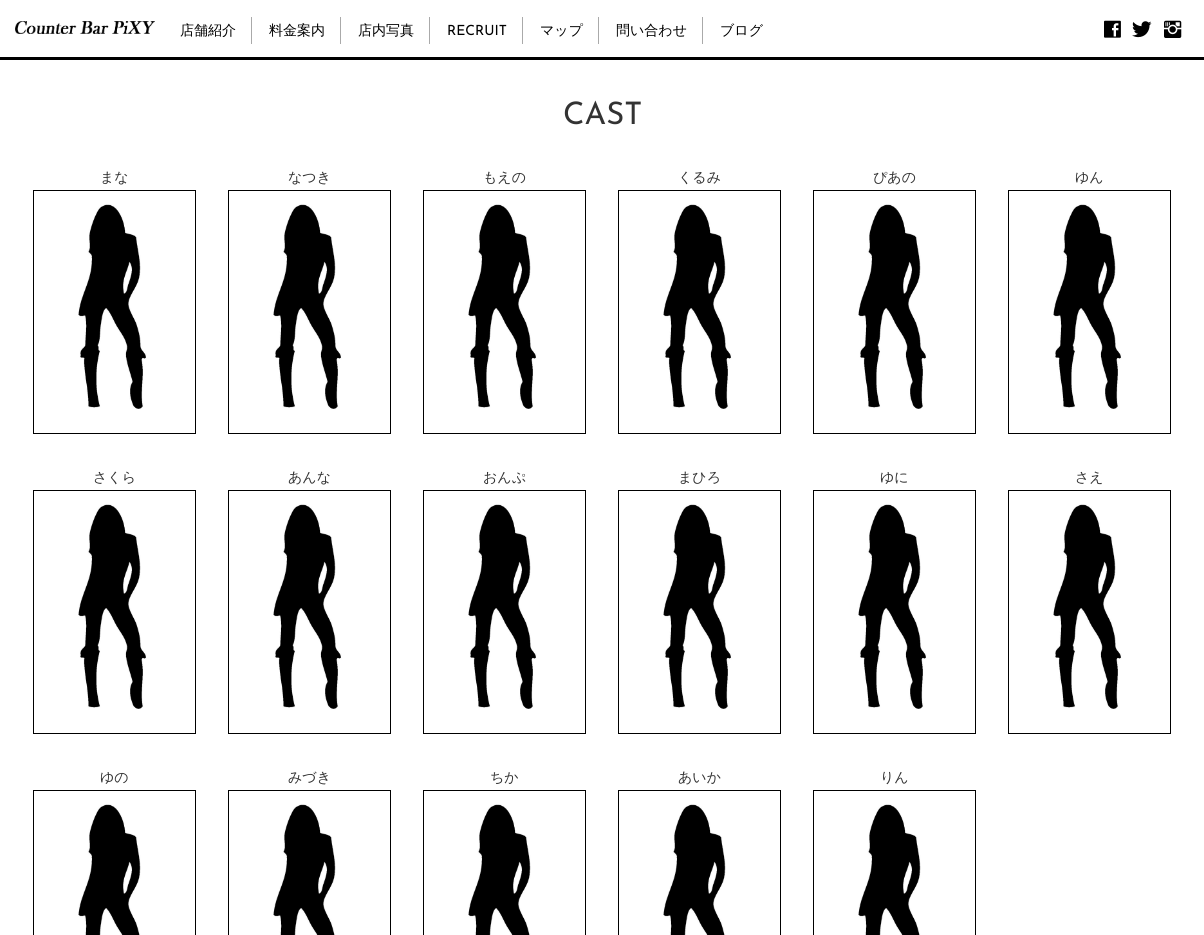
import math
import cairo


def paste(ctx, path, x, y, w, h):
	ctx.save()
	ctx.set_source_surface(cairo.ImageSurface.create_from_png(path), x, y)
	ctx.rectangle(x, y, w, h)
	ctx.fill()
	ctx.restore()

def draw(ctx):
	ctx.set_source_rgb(1, 1, 1)
	ctx.paint()
	ctx.set_source_rgb(0, 0, 0)
	ctx.rectangle(0, 57, 1204, 3)
	ctx.fill()
	paste(ctx, 'media/1.png', 15, 21, 140, 13)
	ctx.set_source_rgb(0.667, 0.667, 0.667)
	ctx.rectangle(251, 17, 1, 27)
	ctx.fill()
	ctx.select_font_face('WenQuanYi Zen Hei Medium')
	ctx.set_font_size(14)
	ctx.set_source_rgb(0, 0, 0)
	ctx.move_to(180, 35)
	ctx.show_text('店舗紹介')
	ctx.set_source_rgb(0.667, 0.667, 0.667)
	ctx.rectangle(340, 17, 1, 27)
	ctx.fill()
	ctx.set_source_rgb(0, 0, 0)
	ctx.move_to(269, 35)
	ctx.show_text('料金案内')
	ctx.set_source_rgb(0.667, 0.667, 0.667)
	ctx.rectangle(429, 17, 1, 27)
	ctx.fill()
	ctx.set_source_rgb(0, 0, 0)
	ctx.move_to(358, 35)
	ctx.show_text('店内写真')
	ctx.set_source_rgb(0.667, 0.667, 0.667)
	ctx.rectangle(522, 17, 1, 27)
	ctx.fill()
	ctx.select_font_face('Josefin Sans')
	ctx.set_source_rgb(0, 0, 0)
	ctx.move_to(447, 35)
	ctx.show_text('RECRUIT')
	ctx.set_source_rgb(0.667, 0.667, 0.667)
	ctx.rectangle(598, 17, 1, 27)
	ctx.fill()
	ctx.select_font_face('WenQuanYi Zen Hei Medium')
	ctx.set_source_rgb(0, 0, 0)
	ctx.move_to(540, 35)
	ctx.show_text('マップ')
	ctx.set_source_rgb(0.667, 0.667, 0.667)
	ctx.rectangle(702, 17, 1, 27)
	ctx.fill()
	ctx.set_source_rgb(0, 0, 0)
	ctx.move_to(616, 35)
	ctx.show_text('問い合わせ')
	ctx.move_to(720, 35)
	ctx.show_text('ブログ')
	paste(ctx, 'media/2.png', 1104, 20, 17, 18)
	paste(ctx, 'media/3.png', 1132, 21, 20, 17)
	paste(ctx, 'media/4.png', 1164, 20, 18, 18)
	ctx.select_font_face('Josefin Sans')
	ctx.set_font_size(31)
	ctx.set_source_rgb(0.2, 0.2, 0.2)
	ctx.move_to(563, 124)
	ctx.show_text('CAST')
	ctx.select_font_face('WenQuanYi Zen Hei Medium')
	ctx.set_font_size(14)
	ctx.move_to(100, 182)
	ctx.show_text('まな')
	ctx.set_source_rgb(0, 0, 0)
	ctx.rectangle(33, 190, 163, 244)
	ctx.fill()
	paste(ctx, 'media/5.png', 34, 191, 161, 242)
	ctx.set_source_rgb(0.2, 0.2, 0.2)
	ctx.move_to(288, 182)
	ctx.show_text('なつき')
	ctx.set_source_rgb(0, 0, 0)
	ctx.rectangle(228, 190, 163, 244)
	ctx.fill()
	paste(ctx, 'media/5.png', 229, 191, 161, 242)
	ctx.set_source_rgb(0.2, 0.2, 0.2)
	ctx.move_to(483, 182)
	ctx.show_text('もえの')
	ctx.set_source_rgb(0, 0, 0)
	ctx.rectangle(423, 190, 163, 244)
	ctx.fill()
	paste(ctx, 'media/5.png', 424, 191, 161, 242)
	ctx.set_source_rgb(0.2, 0.2, 0.2)
	ctx.move_to(678, 182)
	ctx.show_text('くるみ')
	ctx.set_source_rgb(0, 0, 0)
	ctx.rectangle(618, 190, 163, 244)
	ctx.fill()
	paste(ctx, 'media/5.png', 619, 191, 161, 242)
	ctx.set_source_rgb(0.2, 0.2, 0.2)
	ctx.move_to(873, 182)
	ctx.show_text('ぴあの')
	ctx.set_source_rgb(0, 0, 0)
	ctx.rectangle(813, 190, 163, 244)
	ctx.fill()
	paste(ctx, 'media/5.png', 814, 191, 161, 242)
	ctx.set_source_rgb(0.2, 0.2, 0.2)
	ctx.move_to(1075, 182)
	ctx.show_text('ゆん')
	ctx.set_source_rgb(0, 0, 0)
	ctx.rectangle(1008, 190, 163, 244)
	ctx.fill()
	paste(ctx, 'media/5.png', 1009, 191, 161, 242)
	ctx.set_source_rgb(0.2, 0.2, 0.2)
	ctx.move_to(93, 482)
	ctx.show_text('さくら')
	ctx.set_source_rgb(0, 0, 0)
	ctx.rectangle(33, 490, 163, 244)
	ctx.fill()
	paste(ctx, 'media/5.png', 34, 491, 161, 242)
	ctx.set_source_rgb(0.2, 0.2, 0.2)
	ctx.move_to(288, 482)
	ctx.show_text('あんな')
	ctx.set_source_rgb(0, 0, 0)
	ctx.rectangle(228, 490, 163, 244)
	ctx.fill()
	paste(ctx, 'media/5.png', 229, 491, 161, 242)
	ctx.set_source_rgb(0.2, 0.2, 0.2)
	ctx.move_to(483, 482)
	ctx.show_text('おんぷ')
	ctx.set_source_rgb(0, 0, 0)
	ctx.rectangle(423, 490, 163, 244)
	ctx.fill()
	paste(ctx, 'media/5.png', 424, 491, 161, 242)
	ctx.set_source_rgb(0.2, 0.2, 0.2)
	ctx.move_to(678, 482)
	ctx.show_text('まひろ')
	ctx.set_source_rgb(0, 0, 0)
	ctx.rectangle(618, 490, 163, 244)
	ctx.fill()
	paste(ctx, 'media/5.png', 619, 491, 161, 242)
	ctx.set_source_rgb(0.2, 0.2, 0.2)
	ctx.move_to(880, 482)
	ctx.show_text('ゆに')
	ctx.set_source_rgb(0, 0, 0)
	ctx.rectangle(813, 490, 163, 244)
	ctx.fill()
	paste(ctx, 'media/5.png', 814, 491, 161, 242)
	ctx.set_source_rgb(0.2, 0.2, 0.2)
	ctx.move_to(1075, 482)
	ctx.show_text('さえ')
	ctx.set_source_rgb(0, 0, 0)
	ctx.rectangle(1008, 490, 163, 244)
	ctx.fill()
	paste(ctx, 'media/5.png', 1009, 491, 161, 242)
	ctx.set_source_rgb(0.2, 0.2, 0.2)
	ctx.move_to(100, 782)
	ctx.show_text('ゆの')
	ctx.set_source_rgb(0, 0, 0)
	ctx.rectangle(33, 790, 163, 145)
	ctx.fill()
	paste(ctx, 'media/6.png', 34, 791, 161, 144)
	ctx.set_source_rgb(0.2, 0.2, 0.2)
	ctx.move_to(288, 782)
	ctx.show_text('みづき')
	ctx.set_source_rgb(0, 0, 0)
	ctx.rectangle(228, 790, 163, 145)
	ctx.fill()
	paste(ctx, 'media/6.png', 229, 791, 161, 144)
	ctx.set_source_rgb(0.2, 0.2, 0.2)
	ctx.move_to(490, 782)
	ctx.show_text('ちか')
	ctx.set_source_rgb(0, 0, 0)
	ctx.rectangle(423, 790, 163, 145)
	ctx.fill()
	paste(ctx, 'media/6.png', 424, 791, 161, 144)
	ctx.set_source_rgb(0.2, 0.2, 0.2)
	ctx.move_to(678, 782)
	ctx.show_text('あいか')
	ctx.set_source_rgb(0, 0, 0)
	ctx.rectangle(618, 790, 163, 145)
	ctx.fill()
	paste(ctx, 'media/6.png', 619, 791, 161, 144)
	ctx.set_source_rgb(0.2, 0.2, 0.2)
	ctx.move_to(880, 782)
	ctx.show_text('りん')
	ctx.set_source_rgb(0, 0, 0)
	ctx.rectangle(813, 790, 163, 145)
	ctx.fill()
	paste(ctx, 'media/6.png', 814, 791, 161, 144)


surface = cairo.ImageSurface(cairo.FORMAT_RGB24, 1204, 935)
ctx = cairo.Context(surface)
options = cairo.FontOptions()
options.set_hint_metrics(cairo.HINT_METRICS_OFF)
options.set_hint_style(cairo.HINT_STYLE_NONE)
ctx.set_font_options(options)
ctx.set_miter_limit(4)
draw(ctx)
surface.write_to_png('image.png')
